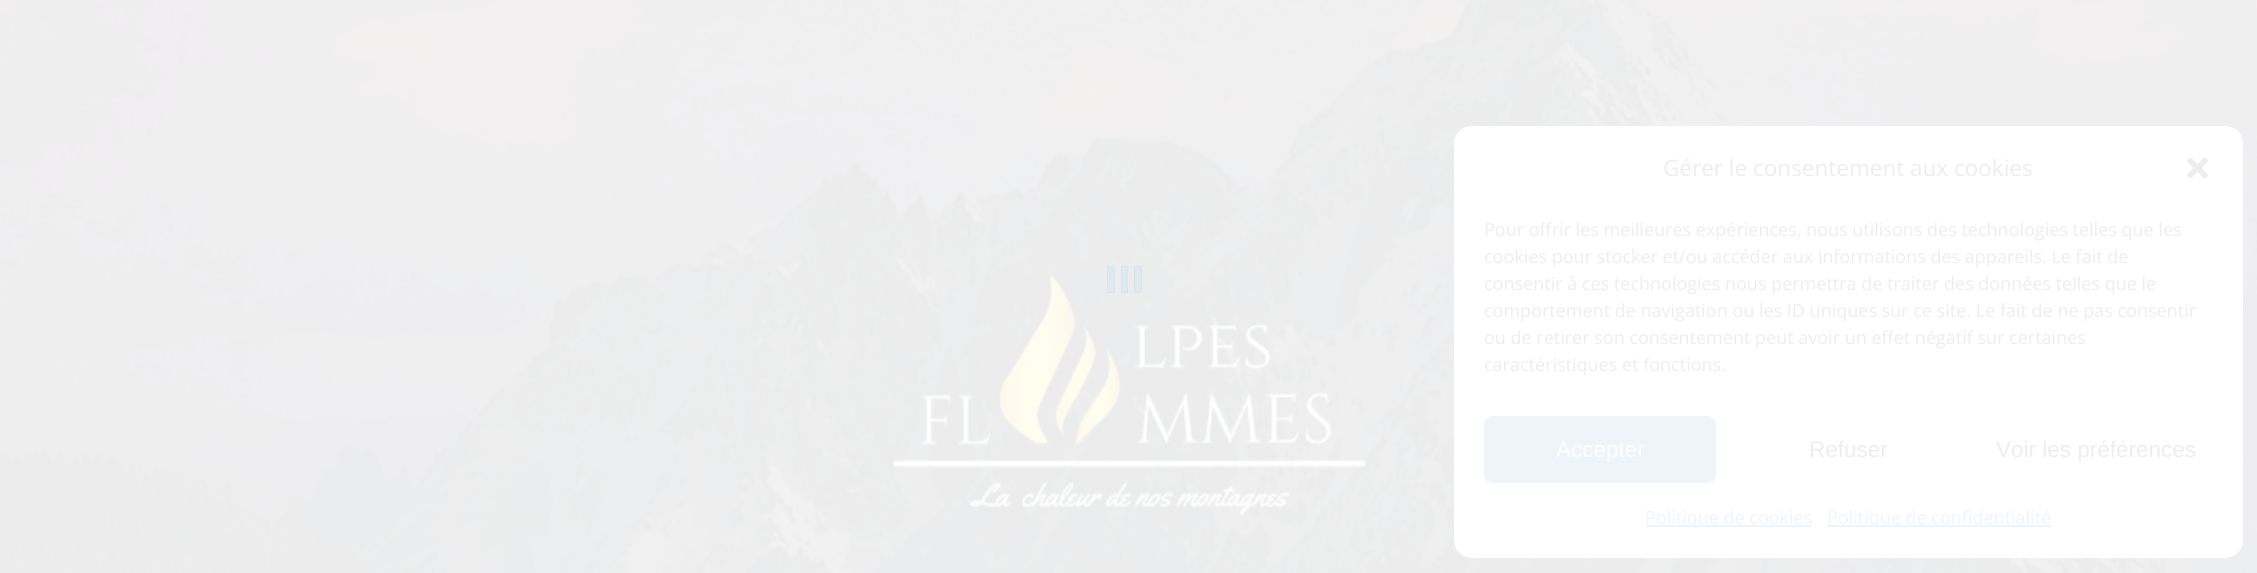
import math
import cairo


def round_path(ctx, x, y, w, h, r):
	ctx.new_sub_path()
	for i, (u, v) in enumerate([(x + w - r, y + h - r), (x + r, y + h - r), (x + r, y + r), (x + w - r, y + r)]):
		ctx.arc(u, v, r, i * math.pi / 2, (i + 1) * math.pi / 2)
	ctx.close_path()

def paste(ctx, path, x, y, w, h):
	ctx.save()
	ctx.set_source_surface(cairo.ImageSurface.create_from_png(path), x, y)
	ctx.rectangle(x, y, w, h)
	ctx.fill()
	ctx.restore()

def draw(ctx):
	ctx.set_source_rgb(1, 1, 1)
	ctx.paint()
	paste(ctx, 'media/1.png', 0, 0, 2257, 573)
	ctx.set_source_rgb(0.875, 0.914, 0.933)
	ctx.rectangle(1107.5, 266.5, 7, 26)
	ctx.fill_preserve()
	ctx.set_source_rgb(0.827, 0.902, 0.937)
	ctx.set_line_width(1)
	ctx.stroke()
	ctx.set_source_rgb(0.875, 0.914, 0.933)
	ctx.rectangle(1121.5, 266.5, 6, 26)
	ctx.fill_preserve()
	ctx.set_source_rgb(0.827, 0.902, 0.937)
	ctx.stroke()
	ctx.set_source_rgb(0.875, 0.914, 0.933)
	ctx.rectangle(1134.5, 266.5, 7, 26)
	ctx.fill_preserve()
	ctx.set_source_rgb(0.827, 0.902, 0.937)
	ctx.stroke()
	ctx.set_source_rgb(1, 1, 1)
	round_path(ctx, 1454, 126, 789, 432, 18)
	ctx.fill()
	ctx.select_font_face('Open Sans')
	ctx.set_font_size(22.5)
	ctx.set_source_rgb(0.929, 0.929, 0.929)
	ctx.move_to(1663, 176)
	ctx.show_text('Gérer le consentement aux cookies')
	paste(ctx, 'media/2.png', 2187, 157, 21, 22)
	ctx.set_font_size(18)
	for x, y, s in [
		(1484, 236, 'Pour offrir les meilleures expériences, nous utilisons des technologies telles que les'),
		(1484, 263, 'cookies pour stocker et/ou accéder aux informations des appareils. Le fait de'),
		(1484, 290, 'consentir à ces technologies nous permettra de traiter des données telles que le'),
		(1484, 317, 'comportement de navigation ou les ID uniques sur ce site. Le fait de ne pas consentir'),
		(1484, 344, 'ou de retirer son consentement peut avoir un effet négatif sur certaines'),
		(1484, 371, 'caractéristiques et fonctions.'),
	]:
		ctx.move_to(x, y)
		ctx.show_text(s)
	ctx.set_source_rgb(0.929, 0.957, 0.98)
	round_path(ctx, 1485, 417, 230, 65, 8)
	ctx.fill_preserve()
	ctx.set_line_width(2)
	ctx.stroke()
	ctx.select_font_face('Liberation Sans')
	ctx.set_font_size(22.5)
	ctx.set_source_rgb(1, 1, 1)
	ctx.move_to(1556, 457)
	ctx.show_text('Accepter')
	ctx.set_source_rgb(0.929, 0.929, 0.929)
	ctx.move_to(1809, 457)
	ctx.show_text('Refuser')
	ctx.move_to(1996, 457)
	ctx.show_text('Voir les préférences')
	ctx.set_source_rgb(0.929, 0.957, 0.98)
	ctx.rectangle(1646, 525, 166, 2)
	ctx.fill()
	ctx.select_font_face('Open Sans')
	ctx.set_font_size(18)
	ctx.move_to(1645, 524)
	ctx.show_text('Politique de cookies')
	ctx.rectangle(1827, 525, 224, 2)
	ctx.fill()
	ctx.move_to(1827, 524)
	ctx.show_text('Politique de confidentialité')


surface = cairo.ImageSurface(cairo.FORMAT_RGB24, 2257, 573)
ctx = cairo.Context(surface)
options = cairo.FontOptions()
options.set_hint_metrics(cairo.HINT_METRICS_OFF)
options.set_hint_style(cairo.HINT_STYLE_NONE)
ctx.set_font_options(options)
ctx.set_miter_limit(4)
draw(ctx)
surface.write_to_png('image.png')
